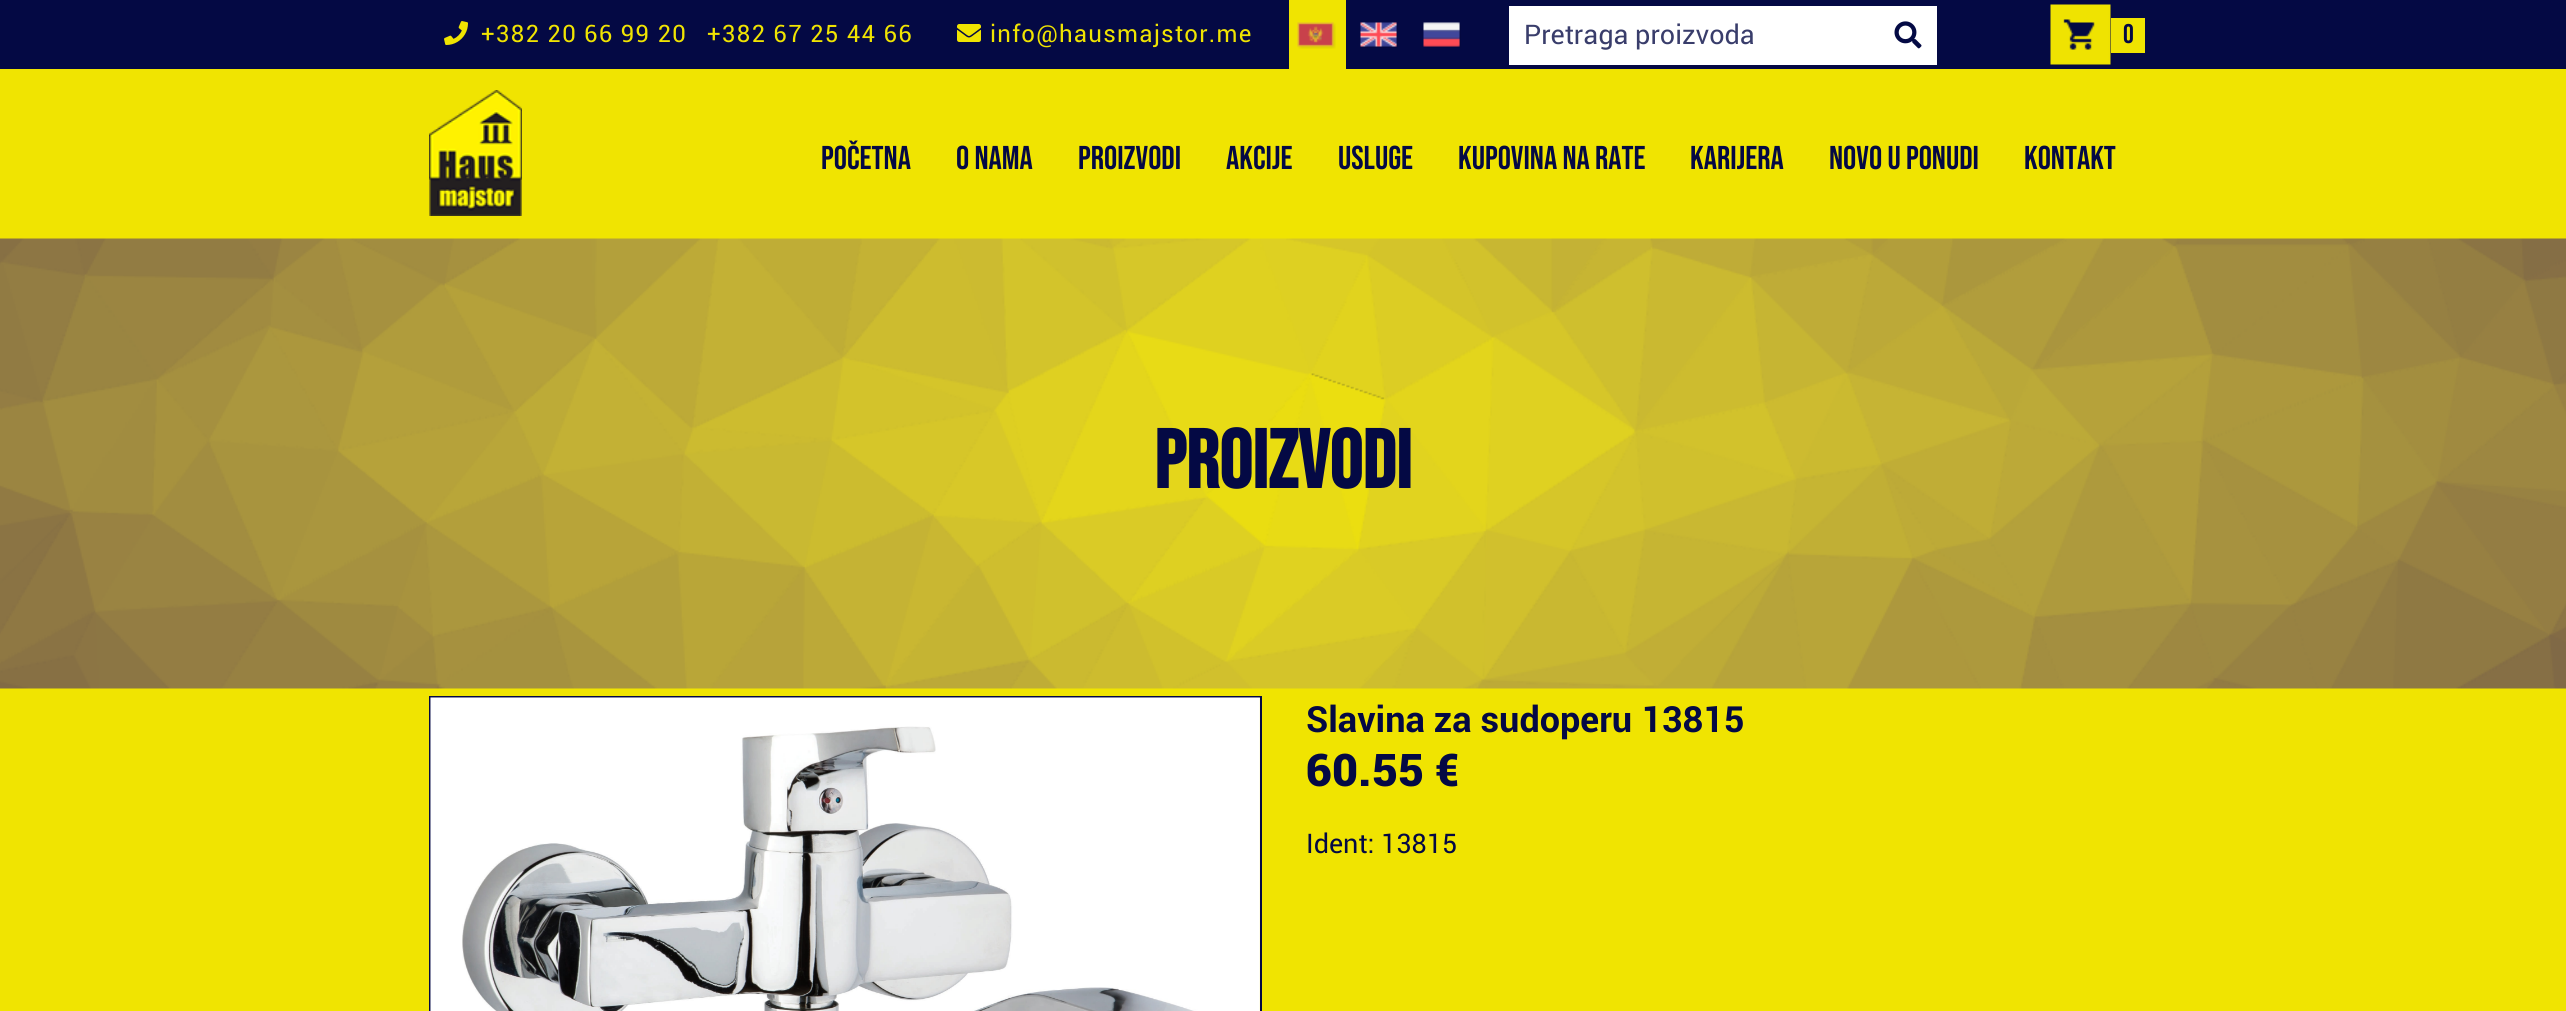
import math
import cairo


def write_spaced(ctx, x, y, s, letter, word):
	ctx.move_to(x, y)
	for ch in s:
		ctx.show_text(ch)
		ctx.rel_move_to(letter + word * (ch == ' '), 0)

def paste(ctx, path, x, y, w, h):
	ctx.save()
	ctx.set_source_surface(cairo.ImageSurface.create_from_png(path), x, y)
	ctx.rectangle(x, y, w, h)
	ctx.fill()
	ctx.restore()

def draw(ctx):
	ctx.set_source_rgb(0.941, 0.894, 0.004)
	ctx.paint()
	ctx.set_source_rgb(0.016, 0.039, 0.267)
	ctx.rectangle(0, 0, 2566, 69)
	ctx.fill()
	paste(ctx, 'media/1.png', 444, 21, 24, 24)
	ctx.select_font_face('Roboto')
	ctx.set_font_size(24)
	ctx.set_source_rgb(0.941, 0.894, 0.004)
	write_spaced(ctx, 481, 42, '+382 20 66 99 20', 1.25, 0)
	write_spaced(ctx, 707, 42, '+382 67 25 44 66', 1.25, 0)
	paste(ctx, 'media/2.png', 957, 24, 24, 18)
	write_spaced(ctx, 990, 42, 'info@hausmajstor.me', 1.25, 0)
	ctx.rectangle(1289, 0, 57, 69)
	ctx.fill()
	paste(ctx, 'media/3.png', 1297, 22, 39, 27)
	paste(ctx, 'media/4.png', 1360, 22, 38, 26)
	paste(ctx, 'media/5.png', 1423, 22, 38, 26)
	ctx.set_source_rgb(1, 1, 1)
	ctx.rectangle(1509, 6, 428, 59)
	ctx.fill()
	ctx.set_font_size(27)
	ctx.set_source_rgb(0.224, 0.239, 0.42)
	ctx.move_to(1524, 44)
	ctx.show_text('Pretraga proizvoda')
	paste(ctx, 'media/6.png', 1894, 21, 28, 28)
	paste(ctx, 'media/7.png', 2050, 4, 61, 61)
	ctx.set_source_rgb(0.941, 0.894, 0.004)
	ctx.rectangle(2111, 18, 34, 35)
	ctx.fill()
	ctx.select_font_face('Bebas Neue')
	ctx.set_source_rgb(0.016, 0.039, 0.267)
	ctx.move_to(2123, 43)
	ctx.show_text('0')
	paste(ctx, 'media/8.png', 429, 90, 93, 126)
	ctx.set_font_size(33)
	for x, y, s in [
		(821, 169, 'POČETNA'),
		(956, 169, 'O NAMA'),
		(1078, 169, 'PROIZVODI'),
		(1226, 169, 'AKCIJE'),
		(1338, 169, 'USLUGE'),
		(1458, 169, 'KUPOVINA NA RATE'),
		(1690, 169, 'KARIJERA'),
		(1829, 169, 'NOVO U PONUDI'),
		(2024, 169, 'KONTAKT'),
	]:
		ctx.move_to(x, y)
		ctx.show_text(s)
	paste(ctx, 'media/9.png', 0, 238, 2566, 451)
	ctx.select_font_face('Bebas Neue', cairo.FONT_SLANT_NORMAL, cairo.FONT_WEIGHT_BOLD)
	ctx.set_font_size(82.5)
	ctx.move_to(1154, 488)
	ctx.show_text('Proizvodi')
	ctx.rectangle(430, 697, 831, 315)
	ctx.stroke()
	paste(ctx, 'media/10.png', 430, 697, 830, 314)
	ctx.select_font_face('Roboto', cairo.FONT_SLANT_NORMAL, cairo.FONT_WEIGHT_BOLD)
	ctx.set_font_size(36)
	ctx.move_to(1306, 732)
	ctx.show_text('Slavina za sudoperu 13815')
	ctx.select_font_face('Roboto Black')
	ctx.set_font_size(45)
	ctx.move_to(1306, 786)
	ctx.show_text('60.55 €')
	ctx.select_font_face('Roboto')
	ctx.set_font_size(27)
	ctx.move_to(1306, 853)
	ctx.show_text('Ident: 13815')


surface = cairo.ImageSurface(cairo.FORMAT_RGB24, 2566, 1011)
ctx = cairo.Context(surface)
options = cairo.FontOptions()
options.set_hint_metrics(cairo.HINT_METRICS_OFF)
options.set_hint_style(cairo.HINT_STYLE_NONE)
ctx.set_font_options(options)
ctx.set_miter_limit(4)
draw(ctx)
surface.write_to_png('image.png')
